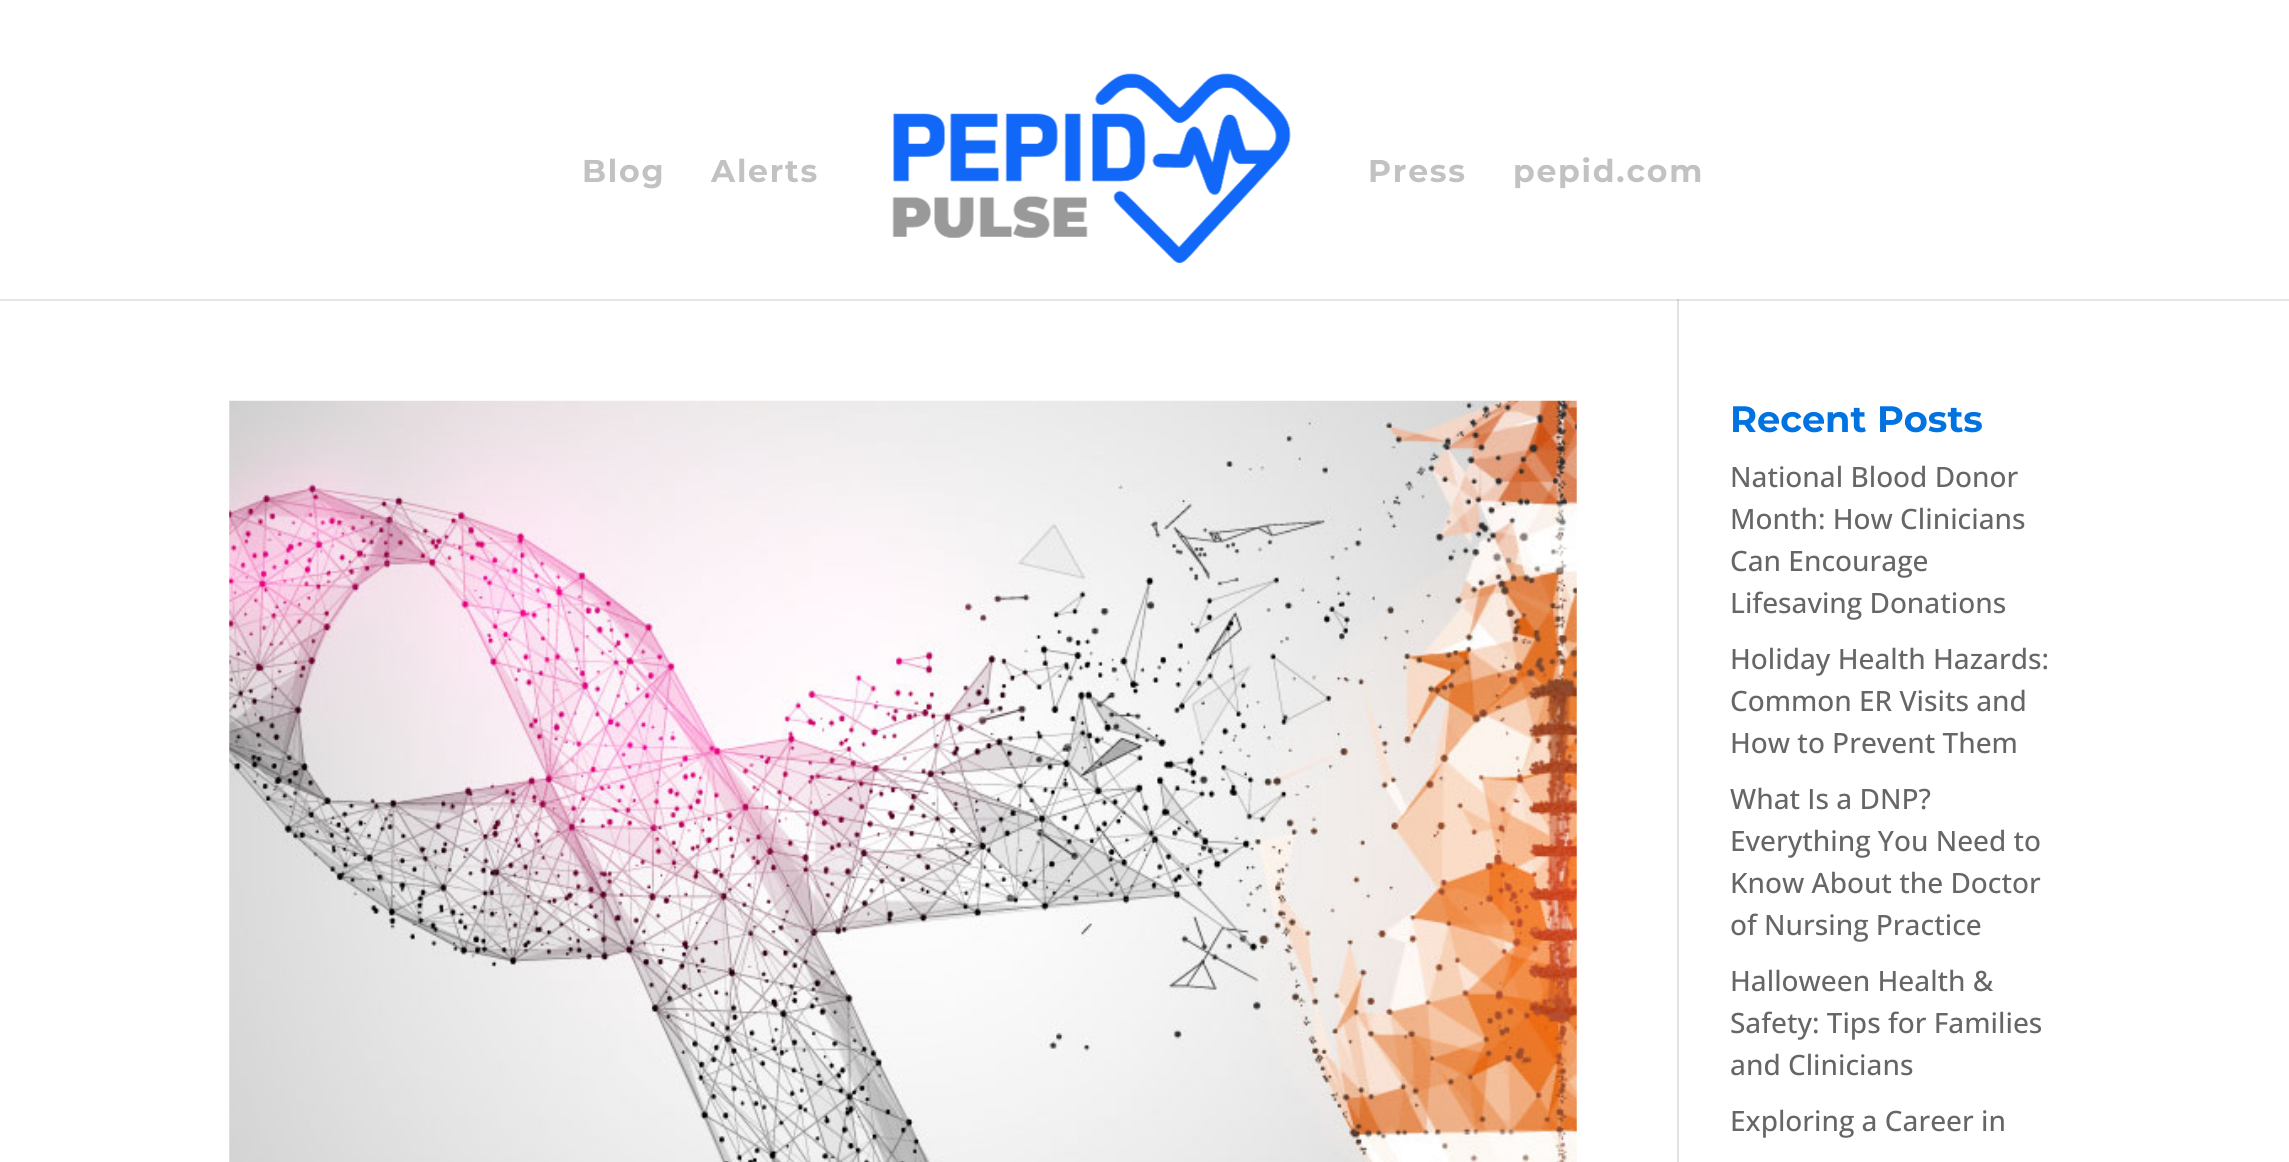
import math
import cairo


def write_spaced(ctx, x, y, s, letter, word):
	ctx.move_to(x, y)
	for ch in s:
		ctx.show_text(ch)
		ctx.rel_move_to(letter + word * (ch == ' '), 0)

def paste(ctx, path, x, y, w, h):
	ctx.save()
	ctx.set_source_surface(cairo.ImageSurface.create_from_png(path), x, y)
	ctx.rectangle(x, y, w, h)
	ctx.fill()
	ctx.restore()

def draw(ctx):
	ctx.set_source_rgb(1, 1, 1)
	ctx.paint()
	ctx.set_source_rgb(0.902, 0.902, 0.902)
	ctx.rectangle(0, 299, 2289, 2)
	ctx.fill()
	ctx.select_font_face('Montserrat', cairo.FONT_SLANT_NORMAL, cairo.FONT_WEIGHT_BOLD)
	ctx.set_font_size(31.5)
	ctx.set_source_rgb(0.761, 0.761, 0.761)
	write_spaced(ctx, 582, 182, 'Blog', 1.75, 0)
	write_spaced(ctx, 711, 182, 'Alerts', 1.75, 0)
	paste(ctx, 'media/1.png', 892, 73, 399, 191)
	write_spaced(ctx, 1368, 182, 'Press', 1.75, 0)
	write_spaced(ctx, 1513, 182, 'pepid.com', 1.75, 0)
	ctx.set_source_rgb(0.886, 0.886, 0.886)
	ctx.rectangle(1677, 299, 2, 863)
	ctx.fill()
	ctx.set_source_rgb(0.796, 0.796, 0.796)
	ctx.rectangle(1677, 299, 2, 2)
	ctx.fill()
	paste(ctx, 'media/2.png', 229, 400, 1348, 762)
	ctx.set_font_size(36.75)
	ctx.set_source_rgb(0, 0.451, 0.878)
	ctx.move_to(1730, 432)
	ctx.show_text('Recent Posts')
	ctx.select_font_face('Open Sans Medium')
	ctx.set_font_size(28)
	ctx.set_source_rgb(0.4, 0.4, 0.4)
	for x, y, s in [
		(1730, 487, 'National Blood Donor'),
		(1730, 529, 'Month: How Clinicians'),
		(1730, 571, 'Can Encourage'),
		(1730, 613, 'Lifesaving Donations'),
		(1730, 669, 'Holiday Health Hazards:'),
		(1730, 711, 'Common ER Visits and'),
		(1730, 753, 'How to Prevent Them'),
		(1730, 809, 'What Is a DNP?'),
		(1730, 851, 'Everything You Need to'),
		(1730, 893, 'Know About the Doctor'),
		(1730, 935, 'of Nursing Practice'),
		(1730, 991, 'Halloween Health &'),
		(1730, 1033, 'Safety: Tips for Families'),
		(1730, 1075, 'and Clinicians'),
		(1730, 1131, 'Exploring a Career in'),
	]:
		ctx.move_to(x, y)
		ctx.show_text(s)


surface = cairo.ImageSurface(cairo.FORMAT_RGB24, 2289, 1162)
ctx = cairo.Context(surface)
options = cairo.FontOptions()
options.set_hint_metrics(cairo.HINT_METRICS_OFF)
options.set_hint_style(cairo.HINT_STYLE_NONE)
ctx.set_font_options(options)
ctx.set_miter_limit(4)
draw(ctx)
surface.write_to_png('image.png')
